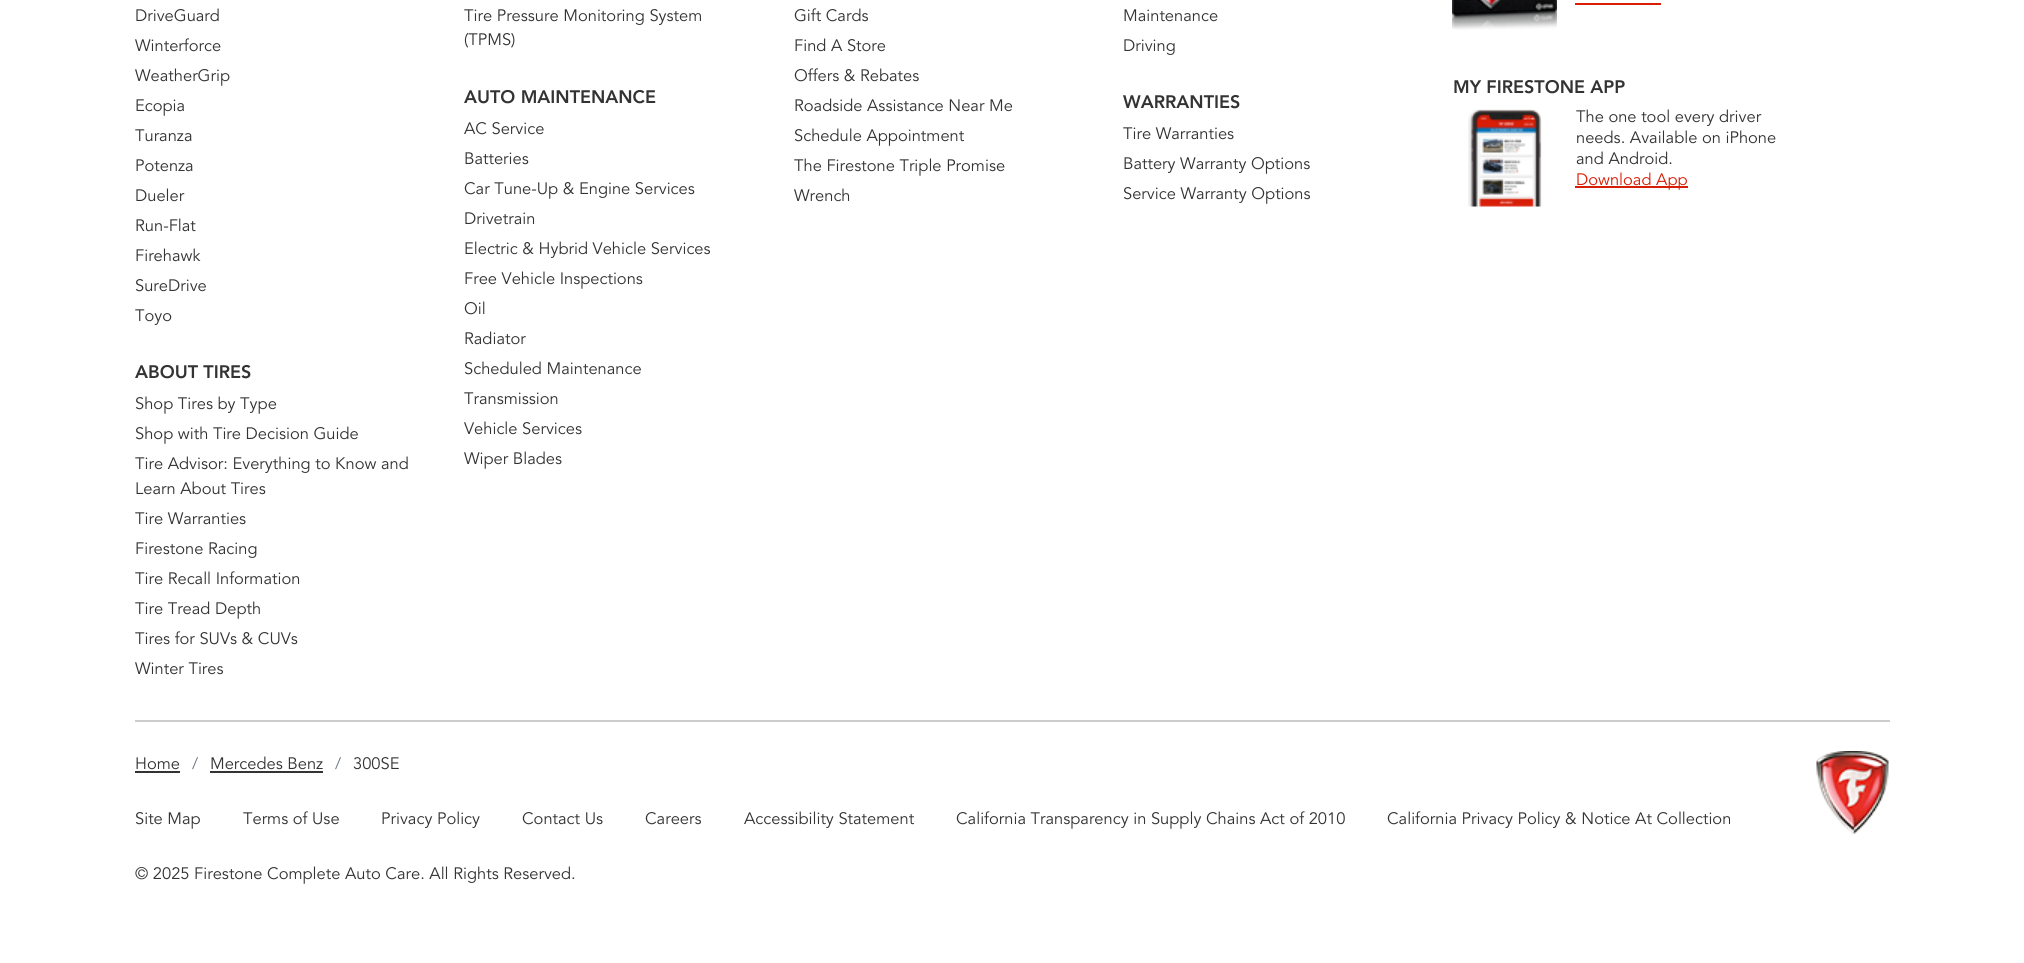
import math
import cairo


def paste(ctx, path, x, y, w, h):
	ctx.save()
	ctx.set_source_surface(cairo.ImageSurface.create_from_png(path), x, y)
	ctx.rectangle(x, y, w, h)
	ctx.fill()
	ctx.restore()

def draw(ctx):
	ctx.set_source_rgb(1, 1, 1)
	ctx.paint()
	ctx.set_source_rgb(0.8, 0.8, 0.8)
	ctx.rectangle(135, 720, 1755, 2)
	ctx.fill()
	ctx.select_font_face('Avenir')
	ctx.set_font_size(16.5)
	ctx.set_source_rgb(0.2, 0.2, 0.2)
	for x, y, s in [
		(135, 21, 'DriveGuard'),
		(135, 51, 'Winterforce'),
		(135, 81, 'WeatherGrip'),
		(135, 111, 'Ecopia'),
		(135, 141, 'Turanza'),
		(135, 171, 'Potenza'),
		(135, 201, 'Dueler'),
		(135, 231, 'Run-Flat'),
		(135, 261, 'Firehawk'),
		(135, 291, 'SureDrive'),
		(135, 321, 'Toyo'),
	]:
		ctx.move_to(x, y)
		ctx.show_text(s)
	ctx.select_font_face('Avenir Black')
	ctx.set_font_size(18)
	ctx.move_to(135, 378)
	ctx.show_text('ABOUT TIRES')
	ctx.select_font_face('Avenir')
	ctx.set_font_size(16.5)
	for x, y, s in [
		(135, 409, 'Shop Tires by Type'),
		(135, 439, 'Shop with Tire Decision Guide'),
		(135, 469, 'Tire Advisor: Everything to Know and'),
		(135, 494, 'Learn About Tires'),
		(135, 524, 'Tire Warranties'),
		(135, 554, 'Firestone Racing'),
		(135, 584, 'Tire Recall Information'),
		(135, 614, 'Tire Tread Depth'),
		(135, 644, 'Tires for SUVs & CUVs'),
		(135, 674, 'Winter Tires'),
		(464, 21, 'Tire Pressure Monitoring System'),
		(464, 45, '(TPMS)'),
	]:
		ctx.move_to(x, y)
		ctx.show_text(s)
	ctx.select_font_face('Avenir Black')
	ctx.set_font_size(18)
	ctx.move_to(464, 103)
	ctx.show_text('AUTO MAINTENANCE')
	ctx.select_font_face('Avenir')
	ctx.set_font_size(16.5)
	for x, y, s in [
		(464, 134, 'AC Service'),
		(464, 164, 'Batteries'),
		(464, 194, 'Car Tune-Up & Engine Services'),
		(464, 224, 'Drivetrain'),
		(464, 254, 'Electric & Hybrid Vehicle Services'),
		(464, 284, 'Free Vehicle Inspections'),
		(464, 314, 'Oil'),
		(464, 344, 'Radiator'),
		(464, 374, 'Scheduled Maintenance'),
		(464, 404, 'Transmission'),
		(464, 434, 'Vehicle Services'),
		(464, 464, 'Wiper Blades'),
		(794, 21, 'Gift Cards'),
		(794, 51, 'Find A Store'),
		(794, 81, 'Offers & Rebates'),
		(794, 111, 'Roadside Assistance Near Me'),
		(794, 141, 'Schedule Appointment'),
		(794, 171, 'The Firestone Triple Promise'),
		(794, 201, 'Wrench'),
		(1123, 21, 'Maintenance'),
		(1123, 51, 'Driving'),
	]:
		ctx.move_to(x, y)
		ctx.show_text(s)
	ctx.select_font_face('Avenir Black')
	ctx.set_font_size(18)
	ctx.move_to(1123, 108)
	ctx.show_text('WARRANTIES')
	ctx.select_font_face('Avenir')
	ctx.set_font_size(16.5)
	for x, y, s in [
		(1123, 139, 'Tire Warranties'),
		(1123, 169, 'Battery Warranty Options'),
		(1123, 199, 'Service Warranty Options'),
	]:
		ctx.move_to(x, y)
		ctx.show_text(s)
	paste(ctx, 'media/1.png', 1452, 0, 105, 30)
	ctx.set_source_rgb(0.847, 0.118, 0.02)
	ctx.rectangle(1575, 3, 86, 2)
	ctx.fill()
	ctx.select_font_face('Avenir Black')
	ctx.set_font_size(18)
	ctx.set_source_rgb(0.2, 0.2, 0.2)
	ctx.move_to(1453, 93)
	ctx.show_text('MY FIRESTONE APP')
	paste(ctx, 'media/2.png', 1468, 109, 74, 98)
	ctx.select_font_face('Avenir')
	ctx.set_font_size(16.5)
	for x, y, s in [
		(1576, 122, 'The one tool every driver'),
		(1576, 143, 'needs. Available on iPhone'),
		(1576, 164, 'and Android.'),
	]:
		ctx.move_to(x, y)
		ctx.show_text(s)
	ctx.set_source_rgb(0.847, 0.118, 0.02)
	ctx.rectangle(1575, 186, 113, 2)
	ctx.fill()
	ctx.move_to(1576, 185)
	ctx.show_text('Download App')
	ctx.set_source_rgb(0.2, 0.2, 0.2)
	ctx.move_to(135, 769)
	ctx.show_text('Home')
	ctx.rectangle(135, 771, 45, 2)
	ctx.fill()
	ctx.set_source_rgb(0.424, 0.459, 0.49)
	ctx.move_to(192, 769)
	ctx.show_text('/')
	ctx.set_source_rgb(0.2, 0.2, 0.2)
	ctx.move_to(210, 769)
	ctx.show_text('Mercedes Benz')
	ctx.rectangle(210, 771, 113, 2)
	ctx.fill()
	ctx.set_source_rgb(0.424, 0.459, 0.49)
	ctx.move_to(335, 769)
	ctx.show_text('/')
	ctx.set_source_rgb(0.2, 0.2, 0.2)
	for x, y, s in [
		(353, 769, '300SE'),
		(135, 824, 'Site Map'),
		(243, 824, 'Terms of Use'),
		(381, 824, 'Privacy Policy'),
		(522, 824, 'Contact Us'),
		(645, 824, 'Careers'),
		(744, 824, 'Accessibility Statement'),
		(956, 824, 'California Transparency in Supply Chains Act of 2010'),
		(1387, 824, 'California Privacy Policy & Notice At Collection'),
		(135, 879, '© 2025 Firestone Complete Auto Care. All Rights Reserved.'),
	]:
		ctx.move_to(x, y)
		ctx.show_text(s)
	paste(ctx, 'media/3.png', 1816, 751, 73, 83)


surface = cairo.ImageSurface(cairo.FORMAT_RGB24, 2024, 963)
ctx = cairo.Context(surface)
options = cairo.FontOptions()
options.set_hint_metrics(cairo.HINT_METRICS_OFF)
options.set_hint_style(cairo.HINT_STYLE_NONE)
ctx.set_font_options(options)
ctx.set_miter_limit(4)
draw(ctx)
surface.write_to_png('image.png')
